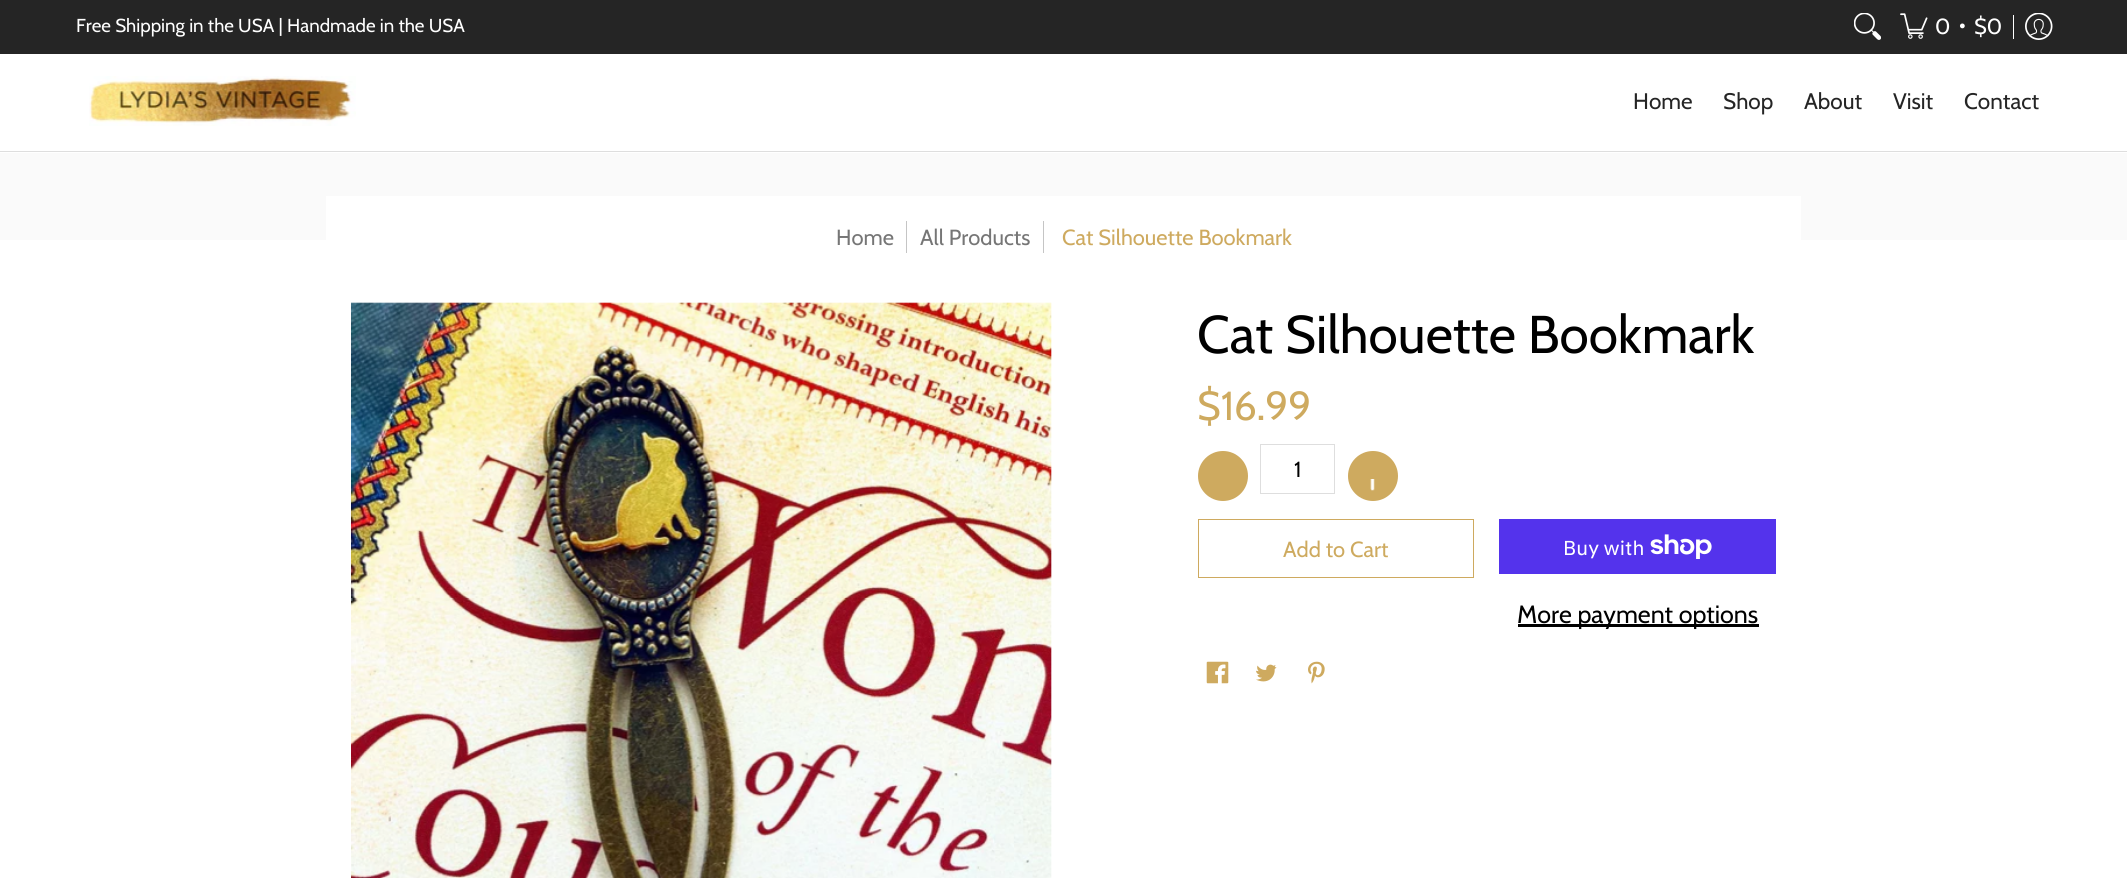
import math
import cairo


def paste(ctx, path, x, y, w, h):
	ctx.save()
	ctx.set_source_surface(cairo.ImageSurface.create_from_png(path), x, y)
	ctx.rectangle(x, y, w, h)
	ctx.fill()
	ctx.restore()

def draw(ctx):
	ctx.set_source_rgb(1, 1, 1)
	ctx.paint()
	ctx.set_source_rgb(0.145, 0.145, 0.145)
	ctx.rectangle(0, 0, 2127, 54)
	ctx.fill()
	ctx.select_font_face('Cabin')
	ctx.set_font_size(18.75)
	ctx.set_source_rgb(1, 1, 1)
	ctx.move_to(76, 32)
	ctx.show_text('Free Shipping in the USA | Handmade in the USA')
	paste(ctx, 'media/1.png', 1854, 13, 27, 27)
	paste(ctx, 'media/2.png', 1900, 13, 28, 26)
	ctx.set_font_size(21.9)
	for x, y, s in [
		(1935, 34, '0'),
		(1959, 32, '•'),
		(1974, 34, '$0'),
	]:
		ctx.move_to(x, y)
		ctx.show_text(s)
	ctx.rectangle(2013, 15, 1, 24)
	ctx.fill()
	paste(ctx, 'media/3.png', 2025, 13, 28, 27)
	ctx.set_source_rgb(0.871, 0.871, 0.871)
	ctx.rectangle(0, 151, 2127, 1)
	ctx.fill()
	paste(ctx, 'media/4.png', 89, 76, 267, 50)
	ctx.set_font_size(22.5)
	ctx.set_source_rgb(0.145, 0.145, 0.145)
	for x, y, s in [
		(1633, 109, 'Home'),
		(1723, 109, 'Shop'),
		(1804, 109, 'About'),
		(1893, 109, 'Visit'),
		(1964, 109, 'Contact'),
	]:
		ctx.move_to(x, y)
		ctx.show_text(s)
	ctx.set_source_rgb(0.98, 0.98, 0.98)
	ctx.rectangle(0, 153, 2127, 87)
	ctx.fill()
	ctx.set_source_rgb(1, 1, 1)
	ctx.rectangle(326, 196, 1475, 44)
	ctx.fill()
	ctx.set_font_size(21.9)
	ctx.set_source_rgb(0.463, 0.463, 0.463)
	ctx.move_to(836, 245)
	ctx.show_text('Home')
	ctx.set_source_rgb(0.773, 0.773, 0.773)
	ctx.rectangle(906, 221, 1, 32)
	ctx.fill()
	ctx.set_source_rgb(0.463, 0.463, 0.463)
	ctx.move_to(920, 245)
	ctx.show_text('All Products')
	ctx.set_source_rgb(0.773, 0.773, 0.773)
	ctx.rectangle(1043, 221, 1, 32)
	ctx.fill()
	ctx.set_source_rgb(0.808, 0.667, 0.373)
	ctx.move_to(1062, 245)
	ctx.show_text('Cat Silhouette Bookmark')
	paste(ctx, 'media/5.png', 351, 302, 701, 576)
	ctx.set_font_size(53.1)
	ctx.set_source_rgb(0, 0, 0)
	ctx.move_to(1197, 353)
	ctx.show_text('Cat Silhouette Bookmark')
	ctx.set_font_size(40.5)
	ctx.set_source_rgb(0.808, 0.667, 0.373)
	ctx.move_to(1197, 420)
	ctx.show_text('$16.99')
	ctx.new_path()
	ctx.arc(1223, 476, 25, 0, 2 * math.pi)
	ctx.fill()
	ctx.rectangle(1260.5, 444.5, 74, 49)
	ctx.set_source_rgb(0.871, 0.871, 0.871)
	ctx.set_line_width(1)
	ctx.stroke()
	ctx.set_font_size(21.9)
	ctx.set_source_rgb(0, 0, 0)
	ctx.move_to(1294, 477)
	ctx.show_text('1')
	ctx.set_source_rgb(0.808, 0.667, 0.373)
	ctx.new_path()
	ctx.arc(1373, 476, 25, 0, 2 * math.pi)
	ctx.fill()
	paste(ctx, 'media/6.png', 1370, 479, 5, 12)
	ctx.rectangle(1198.5, 519.5, 275, 58)
	ctx.stroke()
	ctx.move_to(1283, 557)
	ctx.show_text('Add to Cart')
	ctx.set_source_rgb(0.329, 0.2, 0.922)
	ctx.rectangle(1499, 519, 277, 55)
	ctx.fill()
	ctx.select_font_face('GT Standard')
	ctx.set_font_size(20)
	ctx.set_source_rgb(1, 1, 1)
	ctx.move_to(1563, 555)
	ctx.show_text('Buy with')
	paste(ctx, 'media/7.png', 1650, 534, 62, 25)
	ctx.set_source_rgb(0, 0, 0)
	ctx.rectangle(1518, 624, 241, 3)
	ctx.fill()
	ctx.select_font_face('Cabin')
	ctx.set_font_size(25)
	ctx.move_to(1517, 623)
	ctx.show_text('More payment options')
	paste(ctx, 'media/8.png', 1206, 661, 23, 23)
	paste(ctx, 'media/9.png', 1256, 664, 21, 18)
	paste(ctx, 'media/10.png', 1308, 661, 17, 23)


surface = cairo.ImageSurface(cairo.FORMAT_RGB24, 2127, 878)
ctx = cairo.Context(surface)
options = cairo.FontOptions()
options.set_hint_metrics(cairo.HINT_METRICS_OFF)
options.set_hint_style(cairo.HINT_STYLE_NONE)
ctx.set_font_options(options)
ctx.set_miter_limit(4)
draw(ctx)
surface.write_to_png('image.png')
